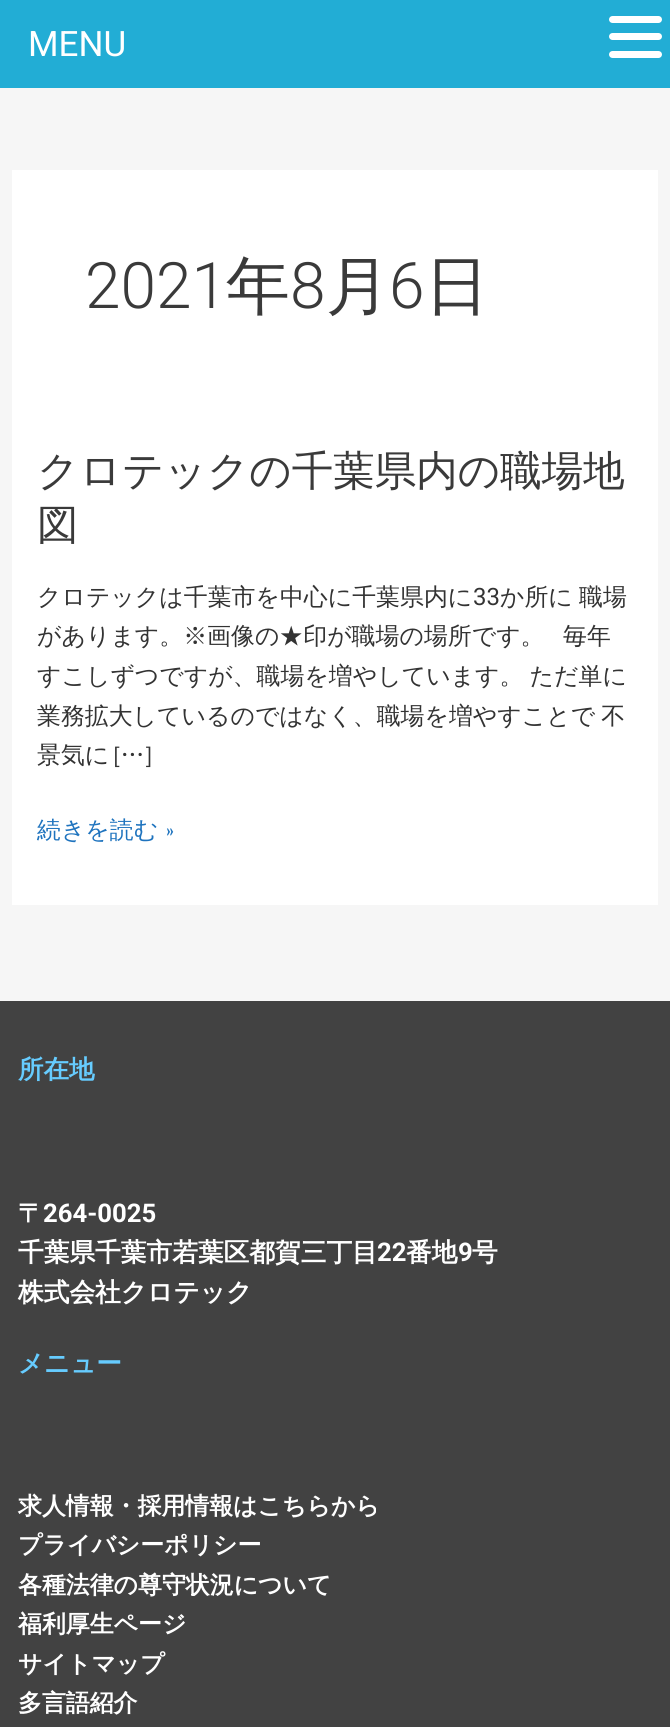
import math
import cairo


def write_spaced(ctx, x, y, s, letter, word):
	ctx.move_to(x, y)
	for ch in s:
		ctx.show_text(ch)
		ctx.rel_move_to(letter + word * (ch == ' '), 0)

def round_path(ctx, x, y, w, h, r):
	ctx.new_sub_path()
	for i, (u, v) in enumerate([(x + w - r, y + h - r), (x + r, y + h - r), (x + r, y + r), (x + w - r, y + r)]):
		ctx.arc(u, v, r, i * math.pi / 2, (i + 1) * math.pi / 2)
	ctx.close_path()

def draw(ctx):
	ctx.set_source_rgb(0.961, 0.961, 0.961)
	ctx.paint()
	ctx.set_source_rgb(0.133, 0.678, 0.835)
	ctx.rectangle(0, 0, 670, 88)
	ctx.fill()
	ctx.select_font_face('Roboto')
	ctx.set_font_size(35)
	ctx.set_source_rgb(1, 1, 1)
	ctx.move_to(28, 56)
	ctx.show_text('MENU')
	round_path(ctx, 609, 16, 53, 7, 3.5)
	ctx.fill()
	round_path(ctx, 609, 33, 53, 7, 3.5)
	ctx.fill()
	round_path(ctx, 609, 51, 53, 7, 3.5)
	ctx.fill()
	ctx.rectangle(12, 170, 646, 735)
	ctx.fill()
	ctx.select_font_face('Roboto Light')
	ctx.set_font_size(64)
	ctx.set_source_rgb(0.227, 0.227, 0.227)
	ctx.move_to(85, 308)
	ctx.show_text('2021')
	ctx.select_font_face('WenQuanYi Zen Hei Medium')
	ctx.move_to(226, 308)
	ctx.show_text('年')
	ctx.select_font_face('Roboto Light')
	ctx.move_to(290, 308)
	ctx.show_text('8')
	ctx.select_font_face('WenQuanYi Zen Hei Medium')
	ctx.move_to(326, 308)
	ctx.show_text('月')
	ctx.select_font_face('Roboto Light')
	ctx.move_to(389, 308)
	ctx.show_text('6')
	ctx.select_font_face('WenQuanYi Zen Hei Medium')
	ctx.move_to(425, 308)
	ctx.show_text('日')
	ctx.set_font_size(41.5)
	ctx.move_to(37, 485)
	ctx.show_text('クロテックの千葉県内の職場地')
	ctx.move_to(37, 539)
	ctx.show_text('図')
	ctx.set_font_size(23.9)
	ctx.set_source_rgb(0.2, 0.2, 0.2)
	ctx.move_to(37, 605)
	ctx.show_text('クロテックは千葉市を中心に千葉県内に')
	ctx.select_font_face('Roboto')
	ctx.move_to(473, 605)
	ctx.show_text('33')
	ctx.select_font_face('WenQuanYi Zen Hei Medium')
	write_spaced(ctx, 500, 605, 'か所に 職場', 0, -1)
	ctx.move_to(37, 644)
	ctx.show_text('があります。※画像の★印が職場の場所です。')
	ctx.move_to(563, 644)
	ctx.show_text('毎年')
	write_spaced(ctx, 37, 684, 'すこしずつですが、職場を増やしています。 ただ単に', 0, -1)
	write_spaced(ctx, 37, 724, '業務拡大しているのではなく、職場を増やすことで 不', 0, -1)
	write_spaced(ctx, 37, 763, '景気に […]', 0, -3)
	ctx.set_source_rgb(0.118, 0.451, 0.745)
	ctx.move_to(37, 838)
	ctx.show_text('続きを読む »')
	ctx.set_source_rgb(0.259, 0.259, 0.259)
	ctx.rectangle(0, 1001, 670, 726)
	ctx.fill()
	ctx.select_font_face('WenQuanYi Zen Hei', cairo.FONT_SLANT_NORMAL, cairo.FONT_WEIGHT_BOLD)
	ctx.set_font_size(25.5)
	ctx.set_source_rgb(0.4, 0.8, 1)
	ctx.move_to(18, 1078)
	ctx.show_text('所在地')
	ctx.set_font_size(25.7)
	ctx.set_source_rgb(1, 1, 1)
	ctx.move_to(18, 1222)
	ctx.show_text('〒')
	ctx.select_font_face('Roboto', cairo.FONT_SLANT_NORMAL, cairo.FONT_WEIGHT_BOLD)
	ctx.move_to(43, 1222)
	ctx.show_text('264-0025')
	ctx.select_font_face('WenQuanYi Zen Hei', cairo.FONT_SLANT_NORMAL, cairo.FONT_WEIGHT_BOLD)
	ctx.move_to(18, 1261)
	ctx.show_text('千葉県千葉市若葉区都賀三丁目')
	ctx.select_font_face('Roboto', cairo.FONT_SLANT_NORMAL, cairo.FONT_WEIGHT_BOLD)
	ctx.move_to(377, 1261)
	ctx.show_text('22')
	ctx.select_font_face('WenQuanYi Zen Hei', cairo.FONT_SLANT_NORMAL, cairo.FONT_WEIGHT_BOLD)
	ctx.move_to(406, 1261)
	ctx.show_text('番地')
	ctx.select_font_face('Roboto', cairo.FONT_SLANT_NORMAL, cairo.FONT_WEIGHT_BOLD)
	ctx.move_to(458, 1261)
	ctx.show_text('9')
	ctx.select_font_face('WenQuanYi Zen Hei', cairo.FONT_SLANT_NORMAL, cairo.FONT_WEIGHT_BOLD)
	ctx.move_to(472, 1261)
	ctx.show_text('号')
	ctx.move_to(18, 1301)
	ctx.show_text('株式会社クロテック')
	ctx.set_font_size(25.5)
	ctx.set_source_rgb(0.4, 0.8, 1)
	ctx.move_to(18, 1372)
	ctx.show_text('メニュー')
	ctx.set_font_size(23.9)
	ctx.set_source_rgb(1, 1, 1)
	for x, y, s in [
		(18, 1514, '求人情報・採用情報はこちらから'),
		(18, 1553, 'プライバシーポリシー'),
		(18, 1593, '各種法律の尊守状況について'),
		(18, 1632, '福利厚生ページ'),
		(18, 1672, 'サイトマップ'),
		(18, 1711, '多言語紹介'),
	]:
		ctx.move_to(x, y)
		ctx.show_text(s)


surface = cairo.ImageSurface(cairo.FORMAT_RGB24, 670, 1727)
ctx = cairo.Context(surface)
options = cairo.FontOptions()
options.set_hint_metrics(cairo.HINT_METRICS_OFF)
options.set_hint_style(cairo.HINT_STYLE_NONE)
ctx.set_font_options(options)
ctx.set_miter_limit(4)
draw(ctx)
surface.write_to_png('image.png')
